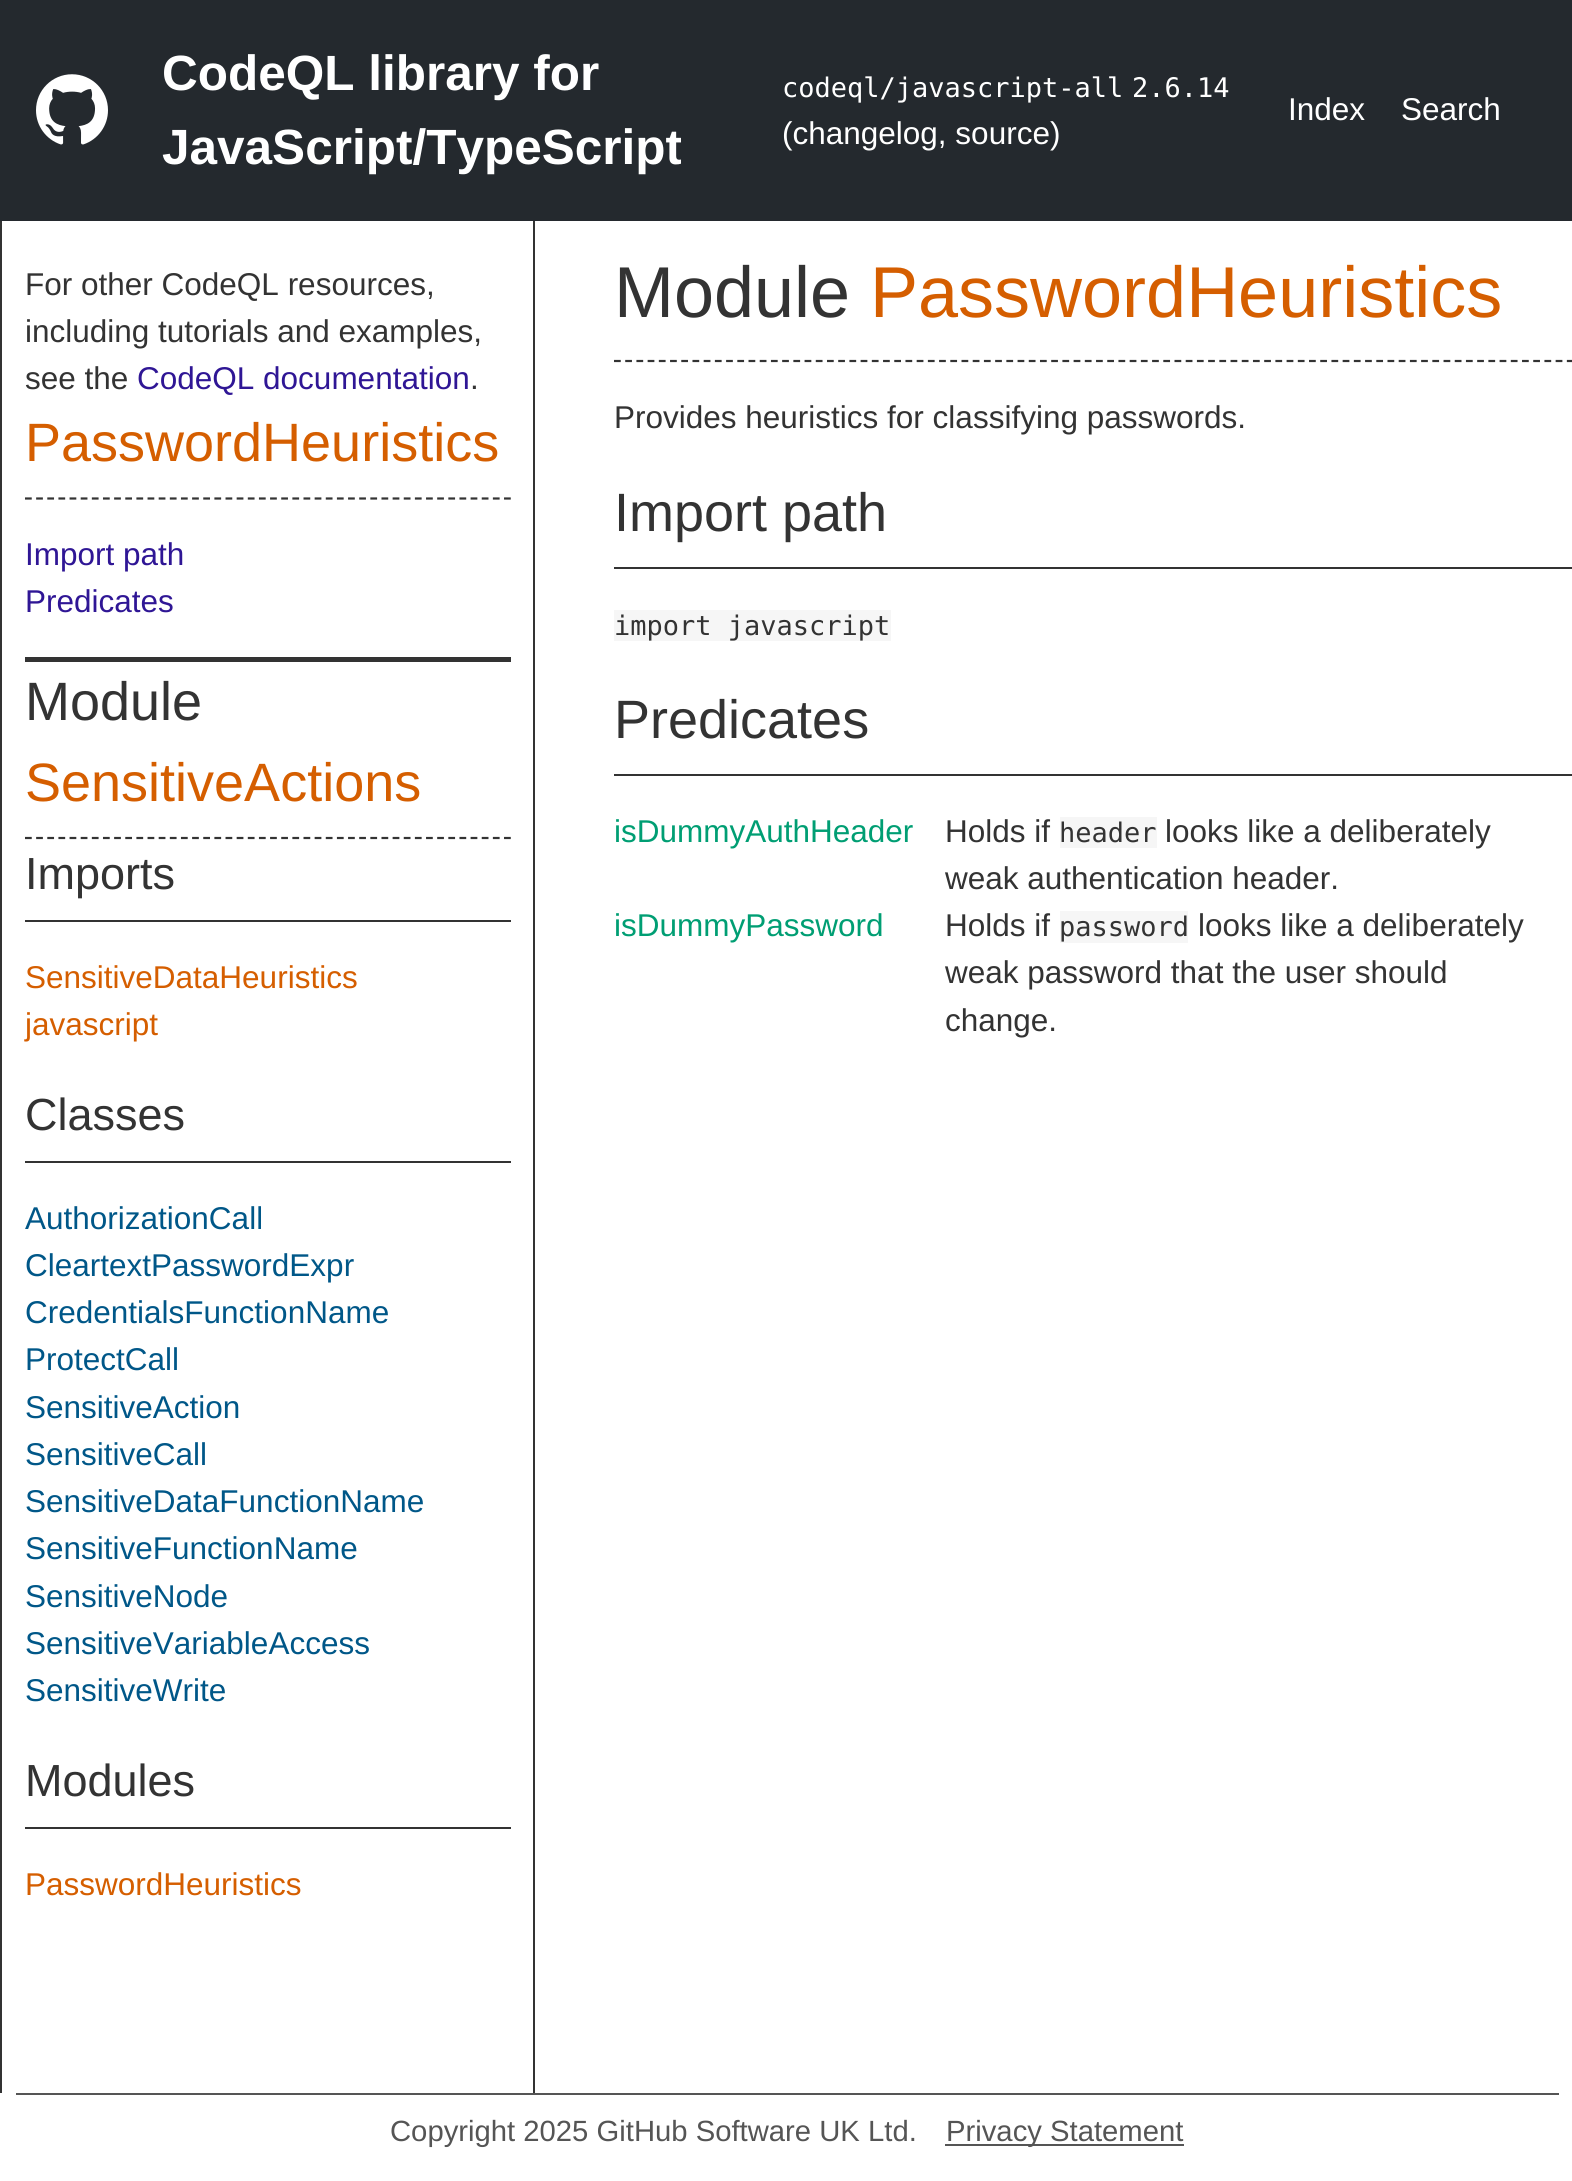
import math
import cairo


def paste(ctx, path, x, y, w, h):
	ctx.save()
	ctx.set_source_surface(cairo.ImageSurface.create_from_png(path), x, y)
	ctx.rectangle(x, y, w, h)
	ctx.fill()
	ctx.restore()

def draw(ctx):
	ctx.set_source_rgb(1, 1, 1)
	ctx.paint()
	ctx.set_source_rgb(0.141, 0.161, 0.18)
	ctx.rectangle(0, 0, 1572, 221)
	ctx.fill()
	paste(ctx, 'media/1.png', 36, 74, 72, 71)
	ctx.select_font_face('Liberation Sans', cairo.FONT_SLANT_NORMAL, cairo.FONT_WEIGHT_BOLD)
	ctx.set_font_size(49.5)
	ctx.set_source_rgb(1, 1, 1)
	ctx.move_to(162, 90)
	ctx.show_text('CodeQL library for')
	ctx.move_to(162, 164)
	ctx.show_text('JavaScript/TypeScript')
	ctx.select_font_face('DejaVu Sans Mono')
	ctx.set_font_size(27)
	ctx.move_to(782, 97)
	ctx.show_text('codeql/javascript-all')
	ctx.move_to(1132, 97)
	ctx.show_text('2.6.14')
	ctx.select_font_face('Liberation Sans')
	ctx.set_font_size(31.5)
	for x, y, s in [
		(782, 144, '(changelog, source)'),
		(1288, 120, 'Index'),
		(1401, 120, 'Search'),
	]:
		ctx.move_to(x, y)
		ctx.show_text(s)
	ctx.set_source_rgb(0.2, 0.2, 0.2)
	ctx.rectangle(533, 221, 2, 1872)
	ctx.rectangle(0, 221, 2, 1872)
	ctx.rectangle(25, 657, 486, 5)
	ctx.fill()
	for x, y, s in [
		(25, 295, 'For other CodeQL resources,'),
		(25, 342, 'including tutorials and examples,'),
		(25, 389, 'see the'),
	]:
		ctx.move_to(x, y)
		ctx.show_text(s)
	ctx.set_source_rgb(0.184, 0.086, 0.584)
	ctx.move_to(137, 389)
	ctx.show_text('CodeQL documentation')
	ctx.set_source_rgb(0.2, 0.2, 0.2)
	ctx.move_to(470, 389)
	ctx.show_text('.')
	ctx.new_path()
	ctx.move_to(25, 498.5)
	ctx.line_to(511, 498.5)
	ctx.set_line_width(2.2)
	ctx.set_dash([6.75, 4.39])
	ctx.stroke()
	ctx.set_font_size(54)
	ctx.set_source_rgb(0.835, 0.369, 0)
	ctx.move_to(25, 461)
	ctx.show_text('PasswordHeuristics')
	ctx.set_font_size(31.5)
	ctx.set_source_rgb(0.184, 0.086, 0.584)
	ctx.move_to(25, 565)
	ctx.show_text('Import path')
	ctx.move_to(25, 612)
	ctx.show_text('Predicates')
	ctx.new_path()
	ctx.move_to(25, 838)
	ctx.line_to(511, 838)
	ctx.set_source_rgb(0.2, 0.2, 0.2)
	ctx.stroke()
	ctx.set_font_size(54)
	ctx.move_to(25, 720)
	ctx.show_text('Module')
	ctx.set_source_rgb(0.835, 0.369, 0)
	ctx.move_to(25, 801)
	ctx.show_text('SensitiveActions')
	ctx.set_source_rgb(0.2, 0.2, 0.2)
	ctx.rectangle(25, 920, 486, 2)
	ctx.fill()
	ctx.set_font_size(45)
	ctx.move_to(25, 889)
	ctx.show_text('Imports')
	ctx.set_font_size(31.5)
	ctx.set_source_rgb(0.835, 0.369, 0)
	ctx.move_to(25, 988)
	ctx.show_text('SensitiveDataHeuristics')
	ctx.move_to(25, 1035)
	ctx.show_text('javascript')
	ctx.set_source_rgb(0.2, 0.2, 0.2)
	ctx.rectangle(25, 1161, 486, 2)
	ctx.fill()
	ctx.set_font_size(45)
	ctx.move_to(25, 1130)
	ctx.show_text('Classes')
	ctx.set_font_size(31.5)
	ctx.set_source_rgb(0, 0.341, 0.533)
	for x, y, s in [
		(25, 1229, 'AuthorizationCall'),
		(25, 1276, 'CleartextPasswordExpr'),
		(25, 1323, 'CredentialsFunctionName'),
		(25, 1370, 'ProtectCall'),
		(25, 1418, 'SensitiveAction'),
		(25, 1465, 'SensitiveCall'),
		(25, 1512, 'SensitiveDataFunctionName'),
		(25, 1559, 'SensitiveFunctionName'),
		(25, 1607, 'SensitiveNode'),
		(25, 1654, 'SensitiveVariableAccess'),
		(25, 1701, 'SensitiveWrite'),
	]:
		ctx.move_to(x, y)
		ctx.show_text(s)
	ctx.set_source_rgb(0.2, 0.2, 0.2)
	ctx.rectangle(25, 1827, 486, 2)
	ctx.fill()
	ctx.set_font_size(45)
	ctx.move_to(25, 1796)
	ctx.show_text('Modules')
	ctx.set_font_size(31.5)
	ctx.set_source_rgb(0.835, 0.369, 0)
	ctx.move_to(25, 1895)
	ctx.show_text('PasswordHeuristics')
	ctx.new_path()
	ctx.move_to(614, 361)
	ctx.line_to(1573, 361)
	ctx.set_source_rgb(0.2, 0.2, 0.2)
	ctx.set_dash([6.75, 4.46])
	ctx.stroke()
	ctx.set_font_size(72)
	ctx.move_to(614, 317)
	ctx.show_text('Module')
	ctx.set_source_rgb(0.835, 0.369, 0)
	ctx.move_to(870, 317)
	ctx.show_text('PasswordHeuristics')
	ctx.set_font_size(31.5)
	ctx.set_source_rgb(0.2, 0.2, 0.2)
	ctx.move_to(614, 428)
	ctx.show_text('Provides heuristics for classifying passwords.')
	ctx.rectangle(614, 567, 958, 2)
	ctx.fill()
	ctx.set_font_size(54)
	ctx.move_to(614, 531)
	ctx.show_text('Import path')
	ctx.set_source_rgb(0.961, 0.961, 0.961)
	ctx.rectangle(614, 610, 277, 31)
	ctx.fill()
	ctx.select_font_face('DejaVu Sans Mono')
	ctx.set_font_size(27)
	ctx.set_source_rgb(0.2, 0.2, 0.2)
	ctx.move_to(614, 635)
	ctx.show_text('import javascript')
	ctx.rectangle(614, 774, 958, 2)
	ctx.fill()
	ctx.select_font_face('Liberation Sans')
	ctx.set_font_size(54)
	ctx.move_to(614, 738)
	ctx.show_text('Predicates')
	ctx.set_font_size(31.5)
	ctx.set_source_rgb(0, 0.62, 0.451)
	ctx.move_to(614, 842)
	ctx.show_text('isDummyAuthHeader')
	ctx.set_source_rgb(0.2, 0.2, 0.2)
	ctx.move_to(945, 842)
	ctx.show_text('Holds if')
	ctx.set_source_rgb(0.961, 0.961, 0.961)
	ctx.rectangle(1060, 817, 97, 31)
	ctx.fill()
	ctx.select_font_face('DejaVu Sans Mono')
	ctx.set_font_size(27)
	ctx.set_source_rgb(0.2, 0.2, 0.2)
	ctx.move_to(1059, 842)
	ctx.show_text('header')
	ctx.select_font_face('Liberation Sans')
	ctx.set_font_size(31.5)
	ctx.move_to(1165, 842)
	ctx.show_text('looks like a deliberately')
	ctx.move_to(945, 889)
	ctx.show_text('weak authentication header.')
	ctx.set_source_rgb(0, 0.62, 0.451)
	ctx.move_to(614, 936)
	ctx.show_text('isDummyPassword')
	ctx.set_source_rgb(0.2, 0.2, 0.2)
	ctx.move_to(945, 936)
	ctx.show_text('Holds if')
	ctx.set_source_rgb(0.961, 0.961, 0.961)
	ctx.rectangle(1060, 911, 128, 32)
	ctx.fill()
	ctx.select_font_face('DejaVu Sans Mono')
	ctx.set_font_size(27)
	ctx.set_source_rgb(0.2, 0.2, 0.2)
	ctx.move_to(1059, 936)
	ctx.show_text('password')
	ctx.select_font_face('Liberation Sans')
	ctx.set_font_size(31.5)
	for x, y, s in [
		(1198, 936, 'looks like a deliberately'),
		(945, 983, 'weak password that the user should'),
		(945, 1031, 'change.'),
	]:
		ctx.move_to(x, y)
		ctx.show_text(s)
	ctx.set_source_rgb(0.333, 0.333, 0.333)
	ctx.rectangle(16, 2093, 1543, 2)
	ctx.fill()
	ctx.set_font_size(29.25)
	ctx.move_to(390, 2141)
	ctx.show_text('Copyright 2025 GitHub Software UK Ltd.')
	ctx.rectangle(945, 2144, 239, 2)
	ctx.fill()
	ctx.move_to(946, 2141)
	ctx.show_text('Privacy Statement')


surface = cairo.ImageSurface(cairo.FORMAT_RGB24, 1572, 2181)
ctx = cairo.Context(surface)
options = cairo.FontOptions()
options.set_hint_metrics(cairo.HINT_METRICS_OFF)
options.set_hint_style(cairo.HINT_STYLE_NONE)
ctx.set_font_options(options)
ctx.set_miter_limit(4)
draw(ctx)
surface.write_to_png('image.png')
